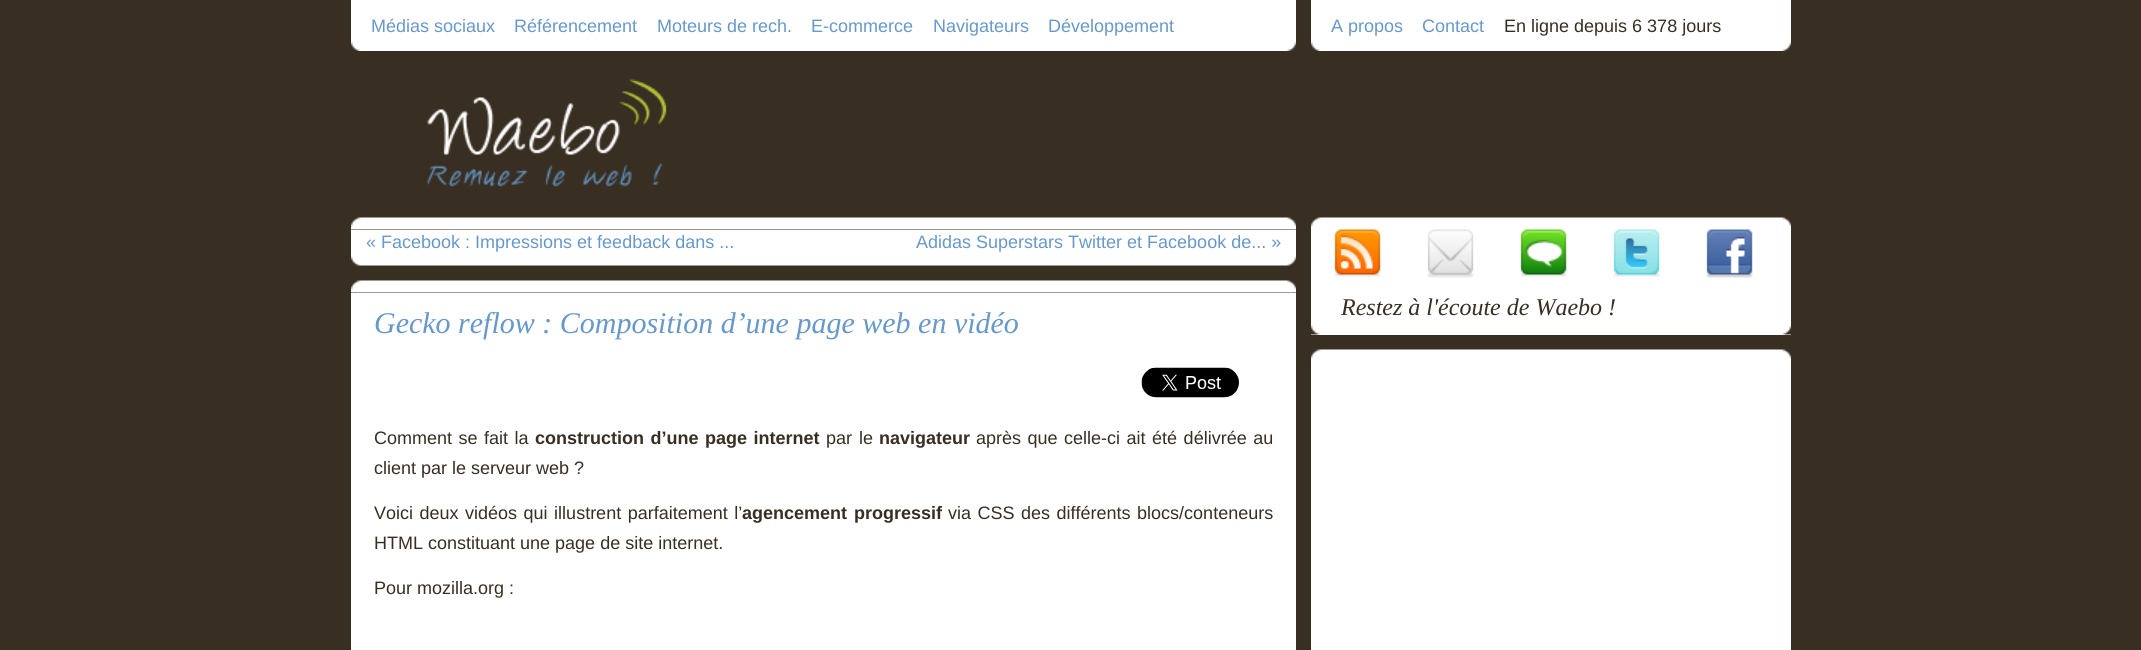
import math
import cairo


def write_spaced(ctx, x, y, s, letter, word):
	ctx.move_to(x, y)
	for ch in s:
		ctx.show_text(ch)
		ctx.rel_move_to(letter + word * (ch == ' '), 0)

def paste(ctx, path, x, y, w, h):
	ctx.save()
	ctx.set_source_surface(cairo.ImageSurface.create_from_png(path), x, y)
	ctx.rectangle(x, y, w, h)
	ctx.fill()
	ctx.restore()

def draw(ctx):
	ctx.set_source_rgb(0.22, 0.18, 0.133)
	ctx.paint()
	ctx.set_source_rgb(1, 1, 1)
	ctx.rectangle(351, 0, 945, 39)
	ctx.fill()
	ctx.select_font_face('Liberation Sans')
	ctx.set_font_size(18)
	ctx.set_source_rgb(0.404, 0.596, 0.792)
	for x, y, s in [
		(371, 32, 'Médias sociaux'),
		(514, 32, 'Référencement'),
		(657, 32, 'Moteurs de rech.'),
		(811, 32, 'E-commerce'),
		(933, 32, 'Navigateurs'),
		(1048, 32, 'Développement'),
	]:
		ctx.move_to(x, y)
		ctx.show_text(s)
	ctx.set_source_rgb(1, 1, 1)
	ctx.rectangle(1311, 0, 480, 39)
	ctx.fill()
	ctx.set_source_rgb(0.404, 0.596, 0.792)
	ctx.move_to(1331, 32)
	ctx.show_text('A propos')
	ctx.move_to(1422, 32)
	ctx.show_text('Contact')
	ctx.set_source_rgb(0.22, 0.18, 0.133)
	ctx.move_to(1504, 32)
	ctx.show_text('En ligne depuis 6 378 jours')
	paste(ctx, 'media/1.png', 351, 39, 945, 12)
	paste(ctx, 'media/2.png', 1311, 39, 480, 12)
	paste(ctx, 'media/3.png', 427, 79, 240, 108)
	paste(ctx, 'media/4.png', 351, 217, 945, 13)
	ctx.set_source_rgb(1, 1, 1)
	ctx.rectangle(351, 230, 945, 24)
	ctx.fill()
	ctx.set_source_rgb(0.404, 0.596, 0.792)
	ctx.move_to(366, 248)
	ctx.show_text('« Facebook : Impressions et feedback dans ...')
	ctx.move_to(916, 248)
	ctx.show_text('Adidas Superstars Twitter et Facebook de... »')
	paste(ctx, 'media/5.png', 351, 254, 945, 12)
	paste(ctx, 'media/4.png', 351, 280, 945, 13)
	ctx.set_source_rgb(1, 1, 1)
	ctx.rectangle(351, 293, 945, 357)
	ctx.fill()
	ctx.select_font_face('Liberation Serif', cairo.FONT_SLANT_ITALIC)
	ctx.set_font_size(30)
	ctx.set_source_rgb(0.404, 0.596, 0.792)
	ctx.move_to(374, 333)
	ctx.show_text('Gecko reflow : Composition d’une page web en vidéo')
	paste(ctx, 'media/6.png', 1141, 367, 98, 31)
	ctx.select_font_face('Liberation Sans')
	ctx.set_font_size(18)
	ctx.set_source_rgb(0.22, 0.18, 0.133)
	write_spaced(ctx, 374, 444, 'Comment se fait la', 0, 1.5)
	ctx.select_font_face('Liberation Sans', cairo.FONT_SLANT_NORMAL, cairo.FONT_WEIGHT_BOLD)
	write_spaced(ctx, 535, 444, 'construction d’une page internet', 0, 1.5)
	ctx.select_font_face('Liberation Sans')
	write_spaced(ctx, 826, 444, 'par le', 0, 2)
	ctx.select_font_face('Liberation Sans', cairo.FONT_SLANT_NORMAL, cairo.FONT_WEIGHT_BOLD)
	ctx.move_to(879, 444)
	ctx.show_text('navigateur')
	ctx.select_font_face('Liberation Sans')
	write_spaced(ctx, 976, 444, 'après que celle-ci ait été délivrée au', 0, 1.5)
	ctx.move_to(374, 474)
	ctx.show_text('client par le serveur web ?')
	write_spaced(ctx, 374, 519, 'Voici deux vidéos qui illustrent parfaitement l’', 0, 1.5)
	ctx.select_font_face('Liberation Sans', cairo.FONT_SLANT_NORMAL, cairo.FONT_WEIGHT_BOLD)
	write_spaced(ctx, 742, 519, 'agencement progressif', 0, 2)
	ctx.select_font_face('Liberation Sans')
	write_spaced(ctx, 948, 519, 'via CSS des différents blocs/conteneurs', 0, 1.5)
	ctx.move_to(374, 549)
	ctx.show_text('HTML constituant une page de site internet.')
	ctx.move_to(374, 594)
	ctx.show_text('Pour mozilla.org :')
	ctx.set_source_rgb(1, 1, 1)
	ctx.rectangle(1311, 228, 480, 107)
	ctx.fill()
	paste(ctx, 'media/7.png', 1311, 217, 480, 11)
	paste(ctx, 'media/8.png', 1334, 229, 47, 48)
	paste(ctx, 'media/9.png', 1427, 229, 47, 49)
	paste(ctx, 'media/10.png', 1520, 229, 47, 48)
	paste(ctx, 'media/11.png', 1613, 229, 47, 48)
	paste(ctx, 'media/12.png', 1706, 229, 47, 49)
	ctx.select_font_face('Liberation Serif', cairo.FONT_SLANT_ITALIC)
	ctx.set_font_size(24)
	ctx.set_source_rgb(0.22, 0.18, 0.133)
	ctx.move_to(1341, 315)
	ctx.show_text('Restez à l\'écoute de Waebo !')
	paste(ctx, 'media/13.png', 1311, 324, 480, 11)
	ctx.set_source_rgb(1, 1, 1)
	ctx.rectangle(1311, 360, 480, 290)
	ctx.fill()
	paste(ctx, 'media/7.png', 1311, 349, 480, 11)


surface = cairo.ImageSurface(cairo.FORMAT_RGB24, 2141, 650)
ctx = cairo.Context(surface)
options = cairo.FontOptions()
options.set_hint_metrics(cairo.HINT_METRICS_OFF)
options.set_hint_style(cairo.HINT_STYLE_NONE)
ctx.set_font_options(options)
ctx.set_miter_limit(4)
draw(ctx)
surface.write_to_png('image.png')
